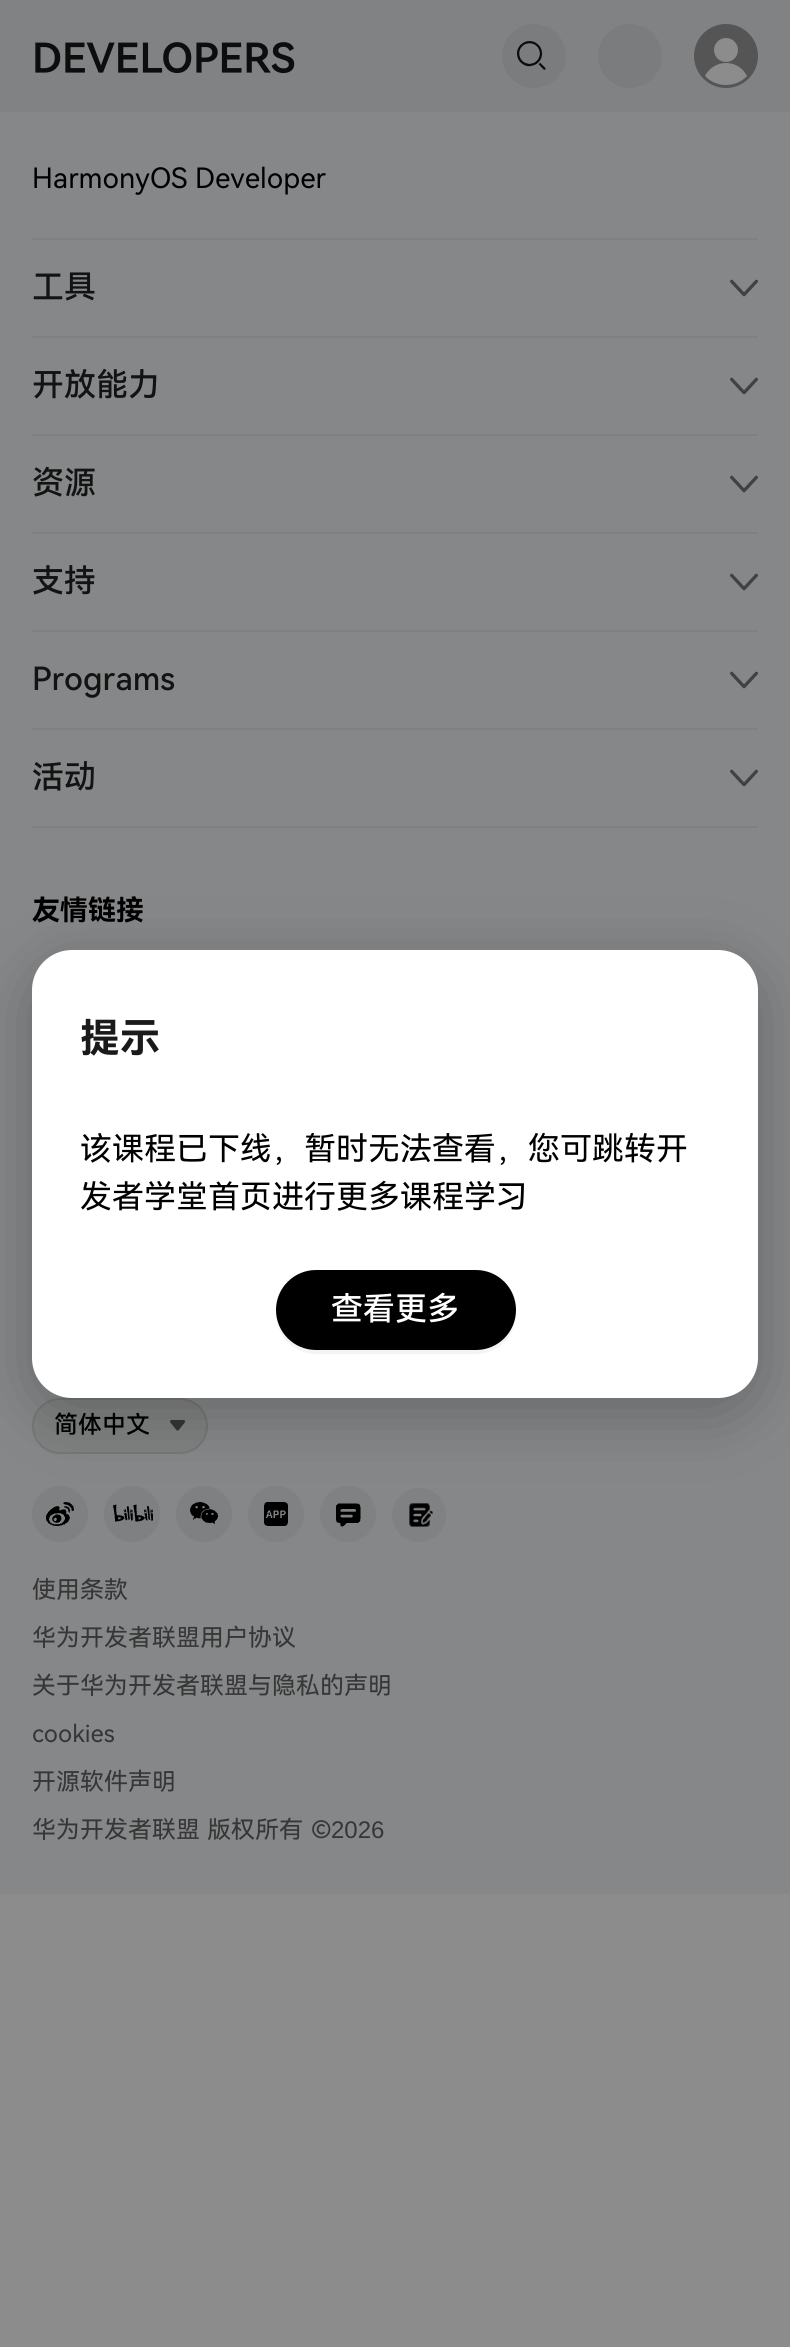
import math
import cairo


def round_path(ctx, x, y, w, h, r):
	ctx.new_sub_path()
	for i, (u, v) in enumerate([(x + w - r, y + h - r), (x + r, y + h - r), (x + r, y + r), (x + w - r, y + r)]):
		ctx.arc(u, v, r, i * math.pi / 2, (i + 1) * math.pi / 2)
	ctx.close_path()

def blur_box(ctx, x, y, w, h, r, blur, alpha):
	ctx.push_group_with_content(cairo.CONTENT_ALPHA)
	ctx.set_operator(cairo.OPERATOR_SOURCE)
	for i in range(15, -16, -2):
		e = blur * i / 6
		if min(w, h) + 2 * e > 0:
			ctx.set_source_rgba(0, 0, 0, alpha * math.erfc((i - 1) / 8.5) / 2)
			round_path(ctx, x - e, y - e, w + 2 * e, h + 2 * e, max(0, min(r + e + blur * .6, min(w, h) / 2 + e)))
			ctx.fill()
	ctx.mask(ctx.pop_group())

def paste(ctx, path, x, y, w, h):
	ctx.save()
	ctx.set_source_surface(cairo.ImageSurface.create_from_png(path), x, y)
	ctx.rectangle(x, y, w, h)
	ctx.fill()
	ctx.restore()

def draw(ctx):
	ctx.set_source_rgb(0.549, 0.549, 0.549)
	ctx.paint()
	ctx.set_source_rgb(0.506, 0.51, 0.514)
	ctx.rectangle(0, 0, 790, 112)
	ctx.fill()
	paste(ctx, 'media/1.png', 35, 42, 260, 32)
	ctx.set_source_rgb(0.482, 0.486, 0.49)
	ctx.arc(534, 56, 32, 0, 2 * math.pi)
	ctx.fill()
	paste(ctx, 'media/2.png', 517, 41, 29, 29)
	ctx.arc(630, 56, 32, 0, 2 * math.pi)
	ctx.fill()
	ctx.set_source_rgb(0.333, 0.333, 0.333)
	ctx.arc(726, 56, 32, 0, 2 * math.pi)
	ctx.fill()
	ctx.set_source_rgb(0.549, 0.549, 0.549)
	ctx.arc(726, 50, 12, 0, 2 * math.pi)
	ctx.fill()
	ctx.set_fill_rule(cairo.FILL_RULE_EVEN_ODD)
	ctx.new_path()
	ctx.move_to(726, 63)
	ctx.curve_to(735, 63, 743, 68, 747, 76)
	ctx.curve_to(736, 88, 716, 88, 705, 76)
	ctx.curve_to(709, 68, 717, 63, 726, 63)
	ctx.close_path()
	ctx.fill()
	ctx.set_source_rgb(0.525, 0.529, 0.533)
	ctx.rectangle(0, 112, 790, 1782)
	ctx.fill()
	ctx.set_source_rgb(0.502, 0.502, 0.502)
	ctx.rectangle(32, 238, 726, 2)
	ctx.fill()
	ctx.select_font_face('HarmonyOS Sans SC')
	ctx.set_font_size(28)
	ctx.set_source_rgb(0, 0, 0)
	ctx.move_to(32, 188)
	ctx.show_text('HarmonyOS')
	ctx.move_to(195, 188)
	ctx.show_text('Developer')
	ctx.set_source_rgb(0.502, 0.502, 0.502)
	ctx.rectangle(32, 336, 726, 2)
	ctx.fill()
	ctx.select_font_face('HarmonyOS Sans SC Medium')
	ctx.set_font_size(32)
	ctx.set_source_rgb(0.078, 0.078, 0.078)
	ctx.move_to(32, 298)
	ctx.show_text('工具')
	paste(ctx, 'media/3.png', 730, 279, 28, 18)
	ctx.set_source_rgb(0.502, 0.502, 0.502)
	ctx.rectangle(32, 434, 726, 2)
	ctx.fill()
	ctx.set_source_rgb(0.078, 0.078, 0.078)
	ctx.move_to(32, 396)
	ctx.show_text('开放能力')
	paste(ctx, 'media/3.png', 730, 377, 28, 18)
	ctx.set_source_rgb(0.502, 0.502, 0.502)
	ctx.rectangle(32, 532, 726, 2)
	ctx.fill()
	ctx.set_source_rgb(0.078, 0.078, 0.078)
	ctx.move_to(32, 494)
	ctx.show_text('资源')
	paste(ctx, 'media/3.png', 730, 475, 28, 18)
	ctx.set_source_rgb(0.502, 0.502, 0.502)
	ctx.rectangle(32, 630, 726, 2)
	ctx.fill()
	ctx.set_source_rgb(0.078, 0.078, 0.078)
	ctx.move_to(32, 592)
	ctx.show_text('支持')
	paste(ctx, 'media/3.png', 730, 573, 28, 18)
	ctx.set_source_rgb(0.502, 0.502, 0.502)
	ctx.rectangle(32, 728, 726, 2)
	ctx.fill()
	ctx.set_source_rgb(0.078, 0.078, 0.078)
	ctx.move_to(32, 690)
	ctx.show_text('Programs')
	paste(ctx, 'media/3.png', 730, 671, 28, 18)
	ctx.set_source_rgb(0.502, 0.502, 0.502)
	ctx.rectangle(32, 826, 726, 2)
	ctx.fill()
	ctx.set_source_rgb(0.078, 0.078, 0.078)
	ctx.move_to(32, 788)
	ctx.show_text('活动')
	paste(ctx, 'media/3.png', 730, 769, 28, 18)
	ctx.select_font_face('HarmonyOS Sans SC', cairo.FONT_SLANT_NORMAL, cairo.FONT_WEIGHT_BOLD)
	ctx.set_font_size(28)
	ctx.set_source_rgb(0, 0, 0)
	ctx.move_to(32, 920)
	ctx.show_text('友情链接')
	ctx.set_source_rgb(0.502, 0.506, 0.506)
	round_path(ctx, 33, 1399, 174, 54, 27)
	ctx.fill_preserve()
	ctx.set_source_rgb(0.463, 0.463, 0.463)
	ctx.stroke()
	ctx.select_font_face('HarmonyOS Sans SC Medium')
	ctx.set_font_size(24)
	ctx.set_source_rgb(0, 0, 0)
	ctx.move_to(54, 1433)
	ctx.show_text('简体中文')
	paste(ctx, 'media/4.png', 170, 1420, 16, 11)
	paste(ctx, 'media/5.png', 32, 1486, 56, 56)
	paste(ctx, 'media/6.png', 104, 1486, 56, 56)
	paste(ctx, 'media/7.png', 176, 1486, 56, 56)
	paste(ctx, 'media/8.png', 248, 1486, 56, 56)
	paste(ctx, 'media/9.png', 320, 1486, 56, 56)
	paste(ctx, 'media/10.png', 392, 1488, 54, 54)
	ctx.select_font_face('HarmonyOS Sans SC')
	ctx.set_source_rgb(0.212, 0.212, 0.212)
	for x, y, s in [
		(32, 1598, '使用条款'),
		(32, 1646, '华为开发者联盟用户协议'),
		(32, 1694, '关于华为开发者联盟与隐私的声明'),
		(32, 1742, 'cookies'),
		(32, 1790, '开源软件声明'),
		(32, 1838, '华为开发者联盟'),
		(207, 1838, '版权所有'),
		(311, 1838, '©'),
	]:
		ctx.move_to(x, y)
		ctx.show_text(s)
	ctx.select_font_face('Liberation Sans')
	ctx.move_to(331, 1838)
	ctx.show_text('2026')
	ctx.set_source_rgb(0, 0, 0)
	blur_box(ctx, 32, 966, 726, 448, 40, 32, 0.24)
	ctx.set_source_rgb(1, 1, 1)
	round_path(ctx, 32, 950, 726, 448, 40)
	ctx.fill()
	ctx.select_font_face('HarmonyOS Sans SC', cairo.FONT_SLANT_NORMAL, cairo.FONT_WEIGHT_BOLD)
	ctx.set_font_size(40)
	ctx.set_source_rgb(0.102, 0.102, 0.102)
	ctx.move_to(80, 1052)
	ctx.show_text('提示')
	ctx.select_font_face('HarmonyOS Sans SC')
	ctx.set_font_size(32)
	ctx.set_source_rgb(0, 0, 0)
	ctx.move_to(80, 1160)
	ctx.show_text('该课程已下线，暂时无法查看，您可跳转开')
	ctx.move_to(80, 1208)
	ctx.show_text('发者学堂首页进行更多课程学习')
	ctx.set_source_rgb(0.957, 0.957, 0.957)
	ctx.set_fill_rule(cairo.FILL_RULE_WINDING)
	ctx.new_path()
	ctx.move_to(276, 1312)
	ctx.line_to(276, 1314)
	ctx.curve_to(276, 1336, 294, 1354, 316, 1354)
	ctx.line_to(476, 1354)
	ctx.curve_to(498, 1354, 516, 1336, 516, 1314)
	ctx.line_to(516, 1312)
	ctx.curve_to(515, 1333, 497, 1350, 476, 1350)
	ctx.line_to(316, 1350)
	ctx.curve_to(295, 1350, 277, 1333, 276, 1312)
	ctx.close_path()
	ctx.fill()
	ctx.set_source_rgb(0, 0, 0)
	round_path(ctx, 276, 1270, 240, 80, 40)
	ctx.fill()
	ctx.select_font_face('HarmonyOS Sans SC Medium')
	ctx.set_source_rgb(1, 1, 1)
	ctx.move_to(331, 1320)
	ctx.show_text('查看更多')


surface = cairo.ImageSurface(cairo.FORMAT_RGB24, 790, 2347)
ctx = cairo.Context(surface)
options = cairo.FontOptions()
options.set_hint_metrics(cairo.HINT_METRICS_OFF)
options.set_hint_style(cairo.HINT_STYLE_NONE)
ctx.set_font_options(options)
ctx.set_miter_limit(4)
draw(ctx)
surface.write_to_png('image.png')
